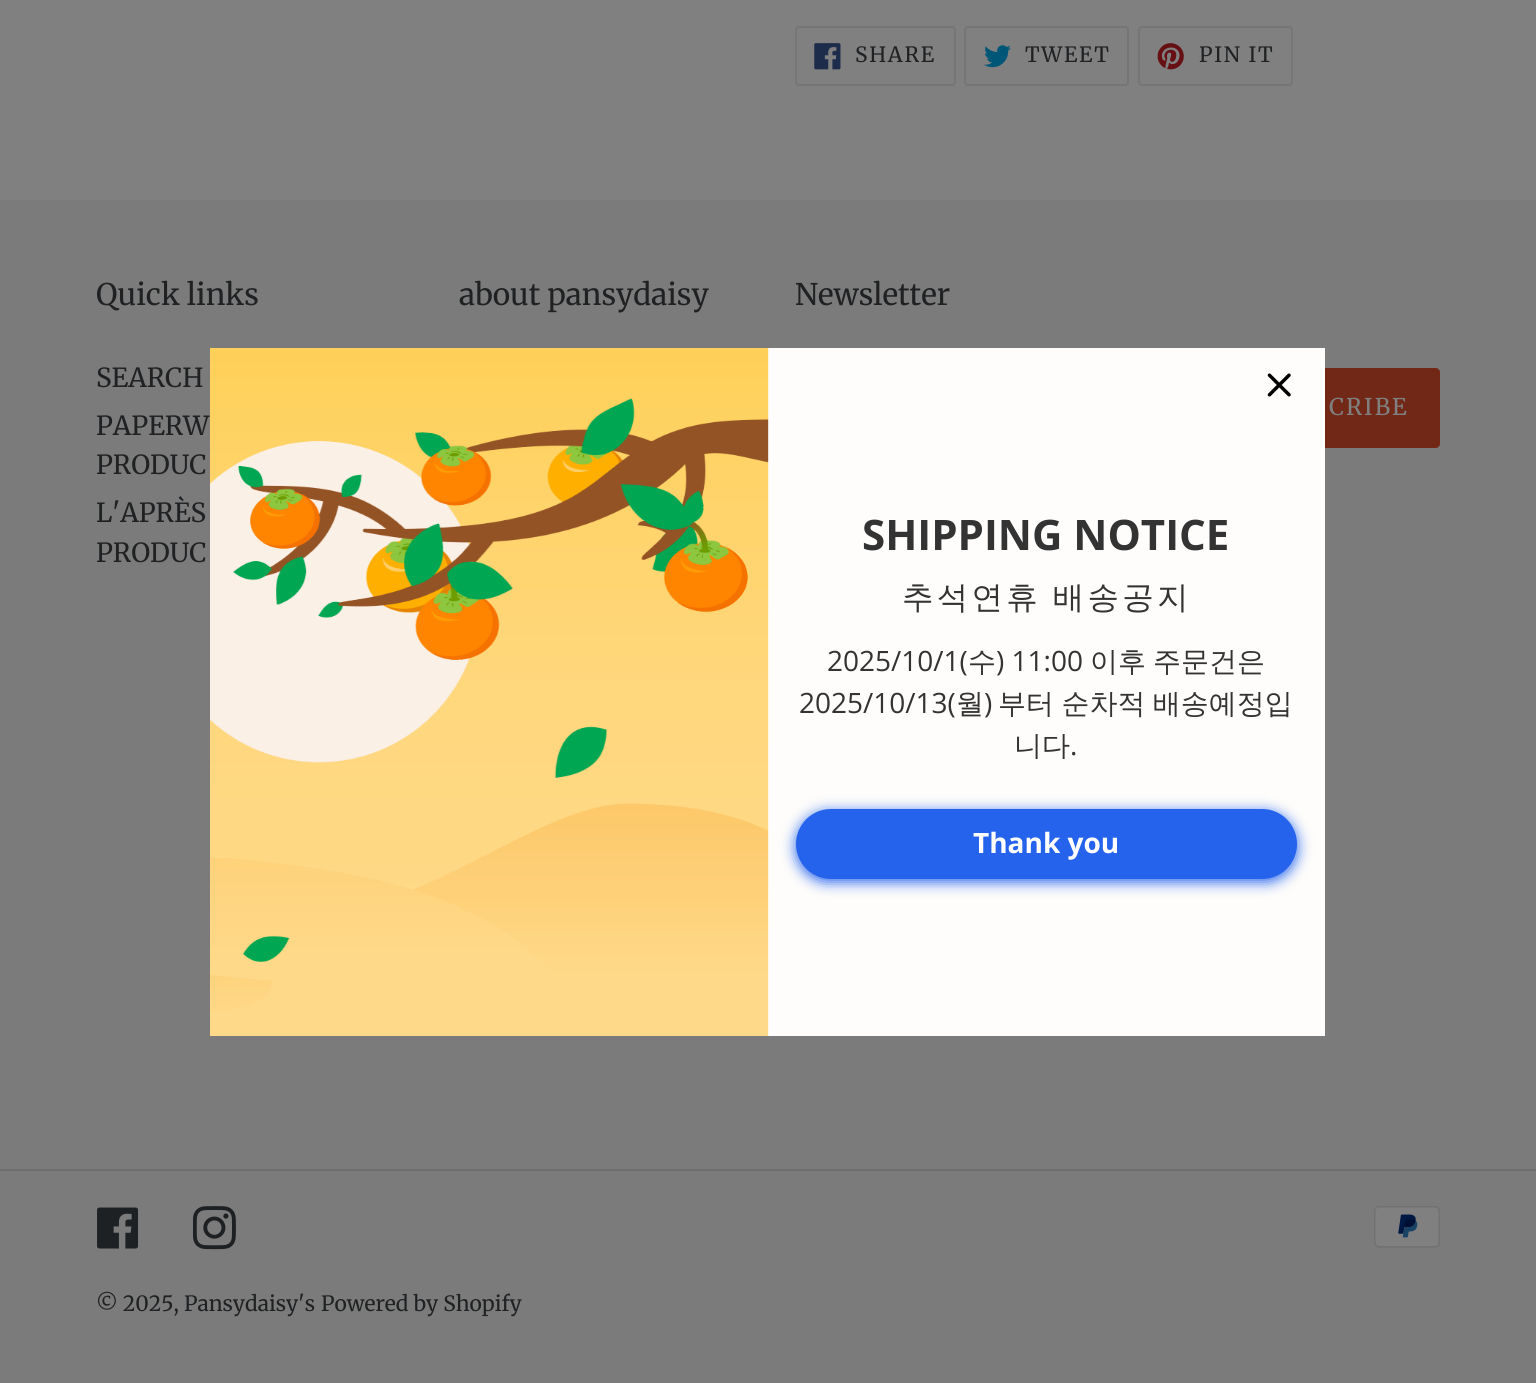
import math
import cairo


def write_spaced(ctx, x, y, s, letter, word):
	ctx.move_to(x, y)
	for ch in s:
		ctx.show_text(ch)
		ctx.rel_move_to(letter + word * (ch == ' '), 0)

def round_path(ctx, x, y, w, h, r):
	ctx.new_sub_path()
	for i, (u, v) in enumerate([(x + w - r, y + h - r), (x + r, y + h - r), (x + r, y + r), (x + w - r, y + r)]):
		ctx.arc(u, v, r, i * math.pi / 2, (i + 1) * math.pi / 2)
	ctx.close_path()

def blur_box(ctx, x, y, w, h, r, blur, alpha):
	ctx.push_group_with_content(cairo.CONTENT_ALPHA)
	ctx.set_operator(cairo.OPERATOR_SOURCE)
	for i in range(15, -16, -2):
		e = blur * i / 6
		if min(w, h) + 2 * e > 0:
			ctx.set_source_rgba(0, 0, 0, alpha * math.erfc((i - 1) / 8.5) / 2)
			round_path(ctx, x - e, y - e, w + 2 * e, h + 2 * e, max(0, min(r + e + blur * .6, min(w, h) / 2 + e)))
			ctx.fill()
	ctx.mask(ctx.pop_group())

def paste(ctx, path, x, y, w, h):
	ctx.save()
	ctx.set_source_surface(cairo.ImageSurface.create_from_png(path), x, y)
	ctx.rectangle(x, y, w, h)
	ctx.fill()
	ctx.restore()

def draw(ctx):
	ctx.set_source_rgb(0.502, 0.502, 0.502)
	ctx.paint()
	round_path(ctx, 796, 27, 159, 58, 3)
	ctx.set_source_rgb(0.455, 0.459, 0.463)
	ctx.stroke()
	paste(ctx, 'media/1.png', 814, 43, 27, 27)
	ctx.select_font_face('Merriweather')
	ctx.set_font_size(21)
	ctx.set_source_rgb(0.122, 0.129, 0.137)
	write_spaced(ctx, 855, 62, 'SHARE', 1.75, 0)
	round_path(ctx, 965, 27, 163, 58, 3)
	ctx.set_source_rgb(0.455, 0.459, 0.463)
	ctx.stroke()
	paste(ctx, 'media/2.png', 984, 45, 27, 23)
	ctx.set_source_rgb(0.122, 0.129, 0.137)
	write_spaced(ctx, 1025, 62, 'TWEET', 1.75, 0)
	round_path(ctx, 1139, 27, 153, 58, 3)
	ctx.set_source_rgb(0.455, 0.459, 0.463)
	ctx.stroke()
	paste(ctx, 'media/3.png', 1157, 43, 27, 27)
	ctx.set_source_rgb(0.122, 0.129, 0.137)
	write_spaced(ctx, 1199, 62, 'PIN IT', 1.75, 0)
	ctx.set_source_rgb(0.482, 0.482, 0.482)
	ctx.rectangle(0, 200, 1536, 1183)
	ctx.fill()
	ctx.set_font_size(29.75)
	ctx.set_source_rgb(0.122, 0.129, 0.137)
	ctx.move_to(96, 305)
	ctx.show_text('Quick links')
	ctx.set_font_size(26.25)
	for x, y, s in [
		(96, 387, 'SEARCH'),
		(96, 435, 'PAPERW'),
		(96, 474, 'PRODUC'),
		(96, 522, 'L\'APRÈS'),
		(96, 562, 'PRODUC'),
	]:
		ctx.move_to(x, y)
		ctx.show_text(s)
	ctx.set_font_size(29.75)
	ctx.move_to(459, 305)
	ctx.show_text('about pansydaisy')
	ctx.move_to(795, 305)
	ctx.show_text('Newsletter')
	ctx.set_source_rgb(0.447, 0.157, 0.086)
	ctx.new_path()
	ctx.move_to(1229, 368)
	ctx.line_to(1436, 368)
	ctx.curve_to(1438, 368, 1440, 370, 1440, 372)
	ctx.line_to(1440, 444)
	ctx.curve_to(1440, 446, 1438, 448, 1436, 448)
	ctx.line_to(1229, 448)
	ctx.close_path()
	ctx.fill()
	ctx.set_font_size(23)
	ctx.set_source_rgb(0.502, 0.502, 0.502)
	write_spaced(ctx, 1329, 415, 'CRIBE', 2, 0)
	ctx.set_source_rgb(0.431, 0.431, 0.431)
	ctx.rectangle(0, 1169, 1536, 2)
	ctx.fill()
	paste(ctx, 'media/4.png', 97, 1207, 42, 42)
	paste(ctx, 'media/5.png', 193, 1206, 43, 44)
	paste(ctx, 'media/6.png', 1374, 1206, 66, 42)
	ctx.set_font_size(21)
	ctx.set_source_rgb(0.122, 0.129, 0.137)
	ctx.move_to(96, 1311)
	ctx.show_text('© 2025, Pansydaisy\'s')
	ctx.move_to(321, 1311)
	ctx.show_text('Powered by Shopify')
	ctx.set_source_rgb(0.996, 0.992, 0.984)
	ctx.rectangle(768, 348, 557, 688)
	ctx.fill()
	paste(ctx, 'media/7.png', 210, 348, 559, 688)
	paste(ctx, 'media/8.png', 1267, 373, 24, 24)
	ctx.select_font_face('Open Sans', cairo.FONT_SLANT_NORMAL, cairo.FONT_WEIGHT_BOLD)
	ctx.set_font_size(42)
	ctx.set_source_rgb(0.2, 0.2, 0.2)
	ctx.move_to(862, 550)
	ctx.show_text('SHIPPING NOTICE')
	ctx.select_font_face('WenQuanYi Zen Hei Medium')
	ctx.set_font_size(31.5)
	write_spaced(ctx, 902, 608, '추석연휴 배송공지', 3.25, -1)
	ctx.select_font_face('Open Sans')
	ctx.set_font_size(28)
	ctx.move_to(827, 671)
	ctx.show_text('2025/10/1(')
	ctx.select_font_face('WenQuanYi Zen Hei Medium')
	ctx.move_to(968, 671)
	ctx.show_text('수')
	ctx.select_font_face('Open Sans')
	ctx.move_to(996, 671)
	ctx.show_text(') 11:00')
	ctx.select_font_face('WenQuanYi Zen Hei Medium')
	ctx.move_to(1090, 671)
	ctx.show_text('이후')
	ctx.move_to(1153, 671)
	ctx.show_text('주문건은')
	ctx.select_font_face('Open Sans')
	ctx.move_to(799, 713)
	ctx.show_text('2025/10/13(')
	ctx.select_font_face('WenQuanYi Zen Hei Medium')
	ctx.move_to(956, 713)
	ctx.show_text('월')
	ctx.select_font_face('Open Sans')
	ctx.move_to(984, 713)
	ctx.show_text(')')
	ctx.select_font_face('WenQuanYi Zen Hei Medium')
	write_spaced(ctx, 998, 713, '부터 순차적 배송예정입', 0, -1)
	ctx.move_to(1014, 755)
	ctx.show_text('니다')
	ctx.select_font_face('Open Sans')
	ctx.move_to(1070, 755)
	ctx.show_text('.')
	ctx.set_source_rgb(0.145, 0.388, 0.922)
	blur_box(ctx, 796, 812, 501, 70, 35, 7, 1)
	ctx.set_source_rgb(0.145, 0.388, 0.922)
	round_path(ctx, 796, 809, 501, 70, 35)
	ctx.fill()
	ctx.select_font_face('Open Sans', cairo.FONT_SLANT_NORMAL, cairo.FONT_WEIGHT_BOLD)
	ctx.set_source_rgb(1, 1, 1)
	ctx.move_to(973, 853)
	ctx.show_text('Thank you')


surface = cairo.ImageSurface(cairo.FORMAT_RGB24, 1536, 1383)
ctx = cairo.Context(surface)
options = cairo.FontOptions()
options.set_hint_metrics(cairo.HINT_METRICS_OFF)
options.set_hint_style(cairo.HINT_STYLE_NONE)
ctx.set_font_options(options)
ctx.set_miter_limit(4)
draw(ctx)
surface.write_to_png('image.png')
